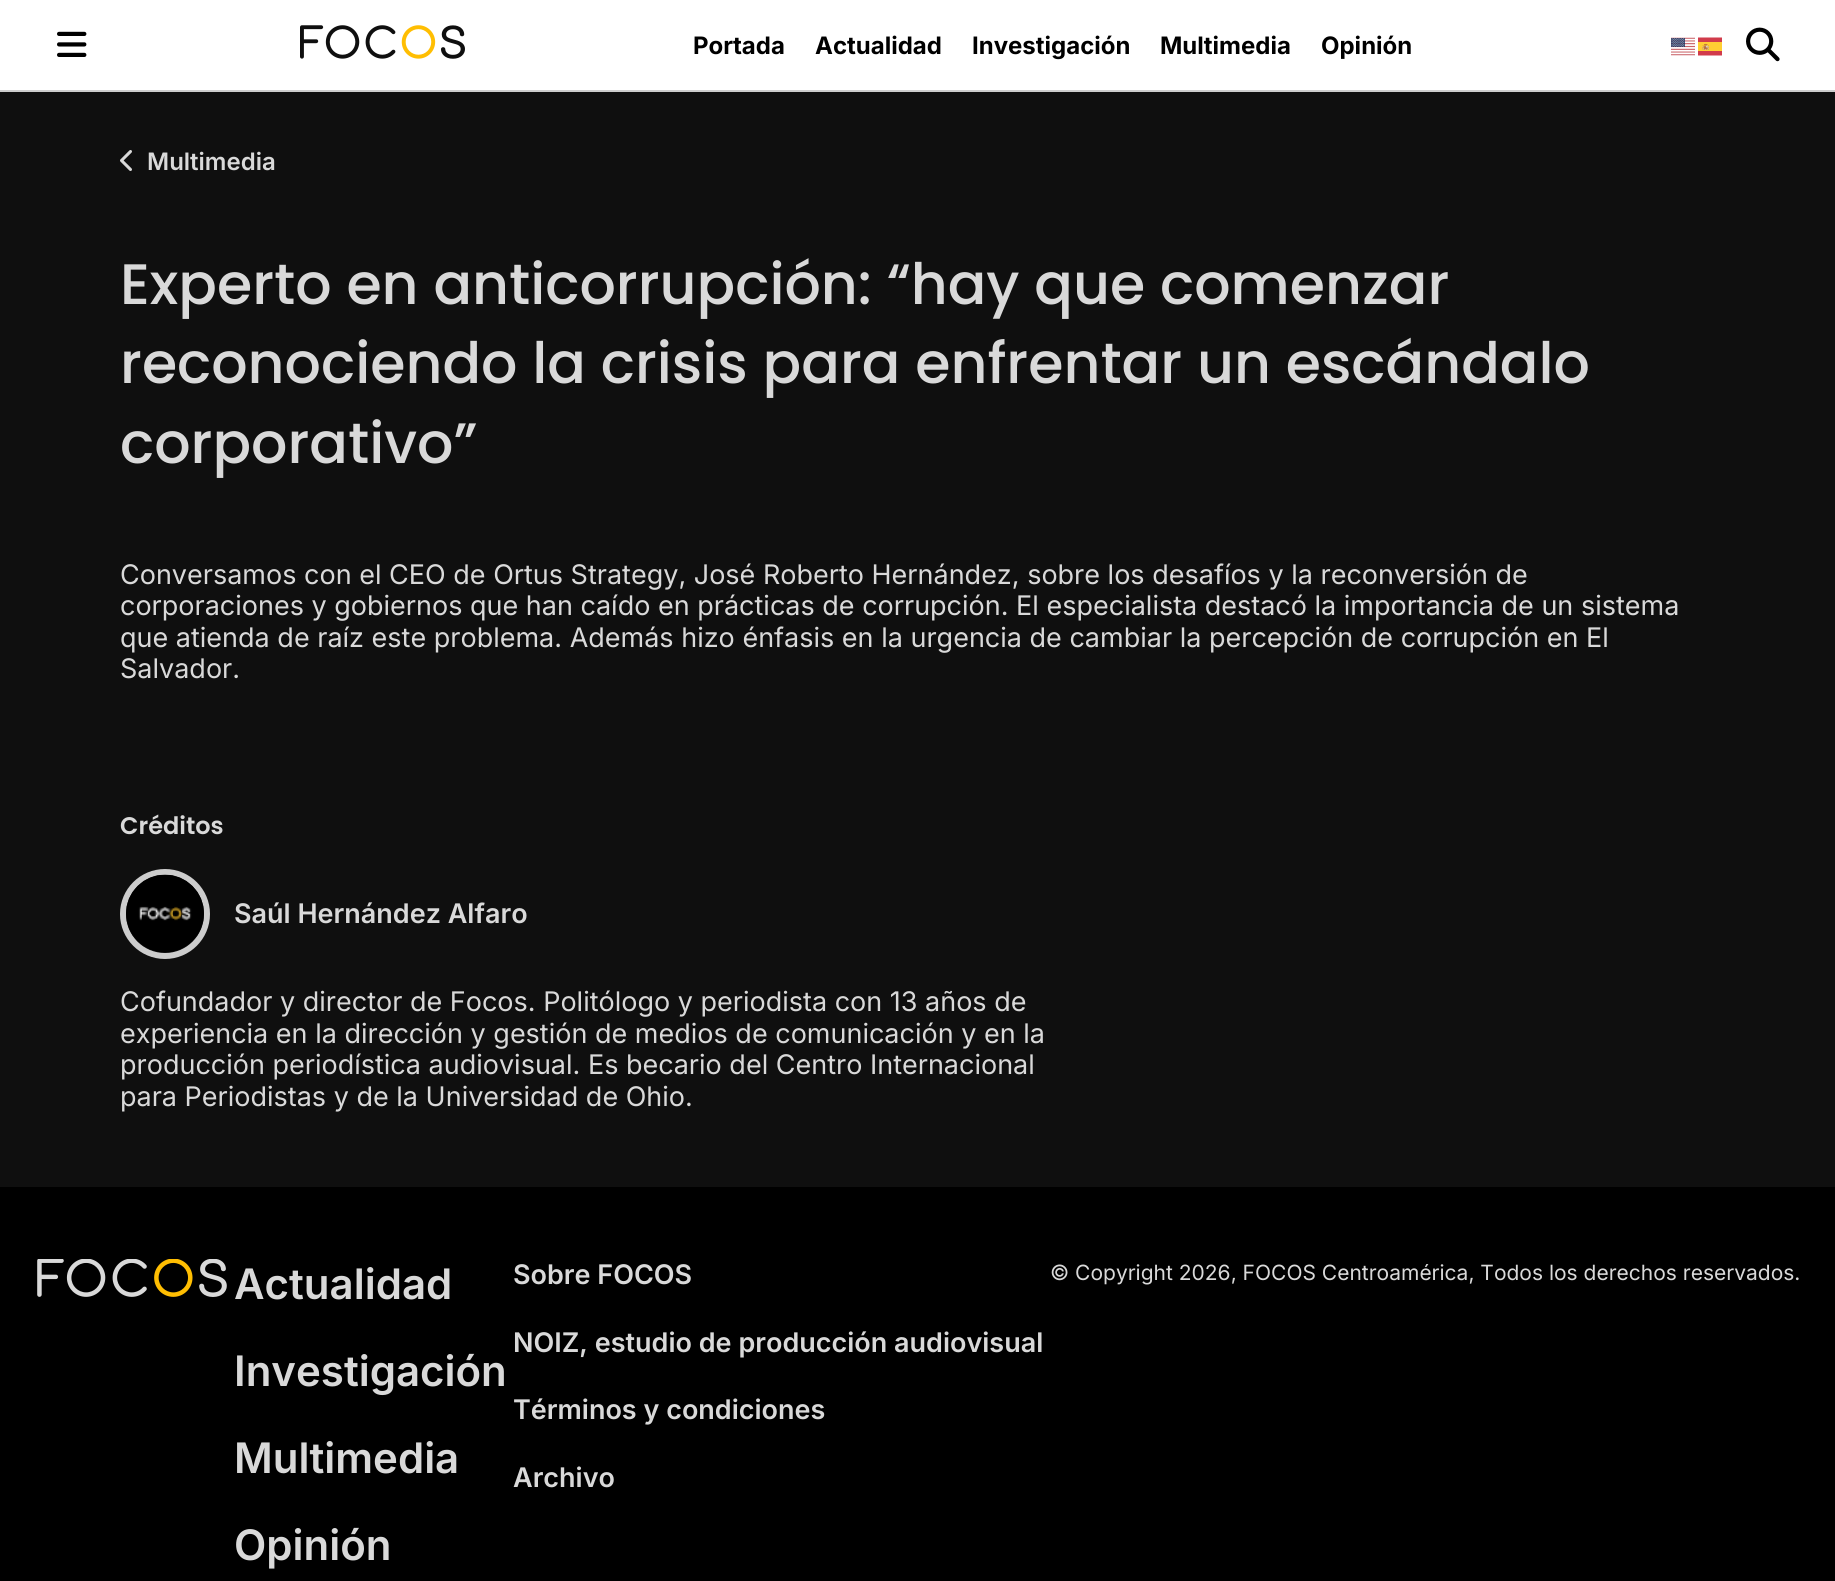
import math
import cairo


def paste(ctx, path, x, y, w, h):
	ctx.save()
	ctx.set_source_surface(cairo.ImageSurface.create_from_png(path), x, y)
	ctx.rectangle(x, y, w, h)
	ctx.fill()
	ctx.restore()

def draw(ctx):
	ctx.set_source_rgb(1, 1, 1)
	ctx.paint()
	ctx.set_source_rgb(0.804, 0.804, 0.804)
	ctx.rectangle(0, 90, 1835, 2)
	ctx.fill()
	paste(ctx, 'media/1.png', 57, 31, 30, 26)
	paste(ctx, 'media/2.png', 300, 25, 165, 34)
	ctx.select_font_face('Inter', cairo.FONT_SLANT_NORMAL, cairo.FONT_WEIGHT_BOLD)
	ctx.set_font_size(24)
	ctx.set_source_rgb(0, 0, 0)
	for x, y, s in [
		(693, 54, 'Portada'),
		(815, 54, 'Actualidad'),
		(972, 54, 'Investigación'),
		(1160, 54, 'Multimedia'),
		(1321, 54, 'Opinión'),
	]:
		ctx.move_to(x, y)
		ctx.show_text(s)
	paste(ctx, 'media/3.png', 1671, 37, 24, 19)
	paste(ctx, 'media/4.png', 1698, 37, 24, 19)
	paste(ctx, 'media/5.png', 1746, 27, 34, 35)
	ctx.set_source_rgb(0.059, 0.059, 0.059)
	ctx.rectangle(0, 92, 1835, 1095)
	ctx.fill()
	paste(ctx, 'media/6.png', 120, 150, 12, 21)
	ctx.select_font_face('Inter SemiBold')
	ctx.set_source_rgb(0.851, 0.851, 0.851)
	ctx.move_to(147, 170)
	ctx.show_text('Multimedia')
	ctx.select_font_face('Poppins Medium')
	ctx.set_font_size(57)
	for x, y, s in [
		(120, 304, 'Experto en anticorrupción: “hay que comenzar'),
		(120, 383, 'reconociendo la crisis para enfrentar un escándalo'),
		(120, 463, 'corporativo”'),
	]:
		ctx.move_to(x, y)
		ctx.show_text(s)
	ctx.select_font_face('Inter')
	ctx.set_font_size(27)
	for x, y, s in [
		(120, 584, 'Conversamos con el CEO de Ortus Strategy, José Roberto Hernández, sobre los desafíos y la reconversión de'),
		(120, 615, 'corporaciones y gobiernos que han caído en prácticas de corrupción. El especialista destacó la importancia de un sistema'),
		(120, 647, 'que atienda de raíz este problema. Además hizo énfasis en la urgencia de cambiar la percepción de corrupción en El'),
		(120, 678, 'Salvador.'),
	]:
		ctx.move_to(x, y)
		ctx.show_text(s)
	ctx.select_font_face('Poppins SemiBold')
	ctx.set_font_size(24)
	ctx.move_to(120, 834)
	ctx.show_text('Créditos')
	ctx.new_path()
	ctx.arc(165, 914, 42, 0, 2 * math.pi)
	ctx.set_source_rgb(0.804, 0.804, 0.804)
	ctx.set_line_width(6)
	ctx.stroke()
	paste(ctx, 'media/7.png', 126, 874, 78, 79)
	ctx.select_font_face('Inter SemiBold')
	ctx.set_font_size(27)
	ctx.set_source_rgb(0.851, 0.851, 0.851)
	ctx.move_to(234, 923)
	ctx.show_text('Saúl Hernández Alfaro')
	ctx.select_font_face('Inter')
	for x, y, s in [
		(120, 1011, 'Cofundador y director de Focos. Politólogo y periodista con 13 años de'),
		(120, 1043, 'experiencia en la dirección y gestión de medios de comunicación y en la'),
		(120, 1074, 'producción periodística audiovisual. Es becario del Centro Internacional'),
		(120, 1106, 'para Periodistas y de la Universidad de Ohio.'),
	]:
		ctx.move_to(x, y)
		ctx.show_text(s)
	ctx.set_source_rgb(0, 0, 0)
	ctx.rectangle(0, 1187, 1835, 394)
	ctx.fill()
	paste(ctx, 'media/8.png', 37, 1259, 190, 38)
	ctx.select_font_face('Inter SemiBold')
	ctx.set_font_size(42)
	ctx.set_source_rgb(0.851, 0.851, 0.851)
	for x, y, s in [
		(234, 1299, 'Actualidad'),
		(234, 1386, 'Investigación'),
		(234, 1473, 'Multimedia'),
		(234, 1560, 'Opinión'),
	]:
		ctx.move_to(x, y)
		ctx.show_text(s)
	ctx.set_font_size(27)
	for x, y, s in [
		(513, 1284, 'Sobre FOCOS'),
		(513, 1352, 'NOIZ, estudio de producción audiovisual'),
		(513, 1419, 'Términos y condiciones'),
		(513, 1487, 'Archivo'),
	]:
		ctx.move_to(x, y)
		ctx.show_text(s)
	ctx.select_font_face('Inter')
	ctx.set_font_size(21)
	ctx.move_to(1050, 1280)
	ctx.show_text('© Copyright 2026, FOCOS Centroamérica, Todos los derechos reservados.')


surface = cairo.ImageSurface(cairo.FORMAT_RGB24, 1835, 1581)
ctx = cairo.Context(surface)
options = cairo.FontOptions()
options.set_hint_metrics(cairo.HINT_METRICS_OFF)
options.set_hint_style(cairo.HINT_STYLE_NONE)
ctx.set_font_options(options)
ctx.set_miter_limit(4)
draw(ctx)
surface.write_to_png('image.png')
